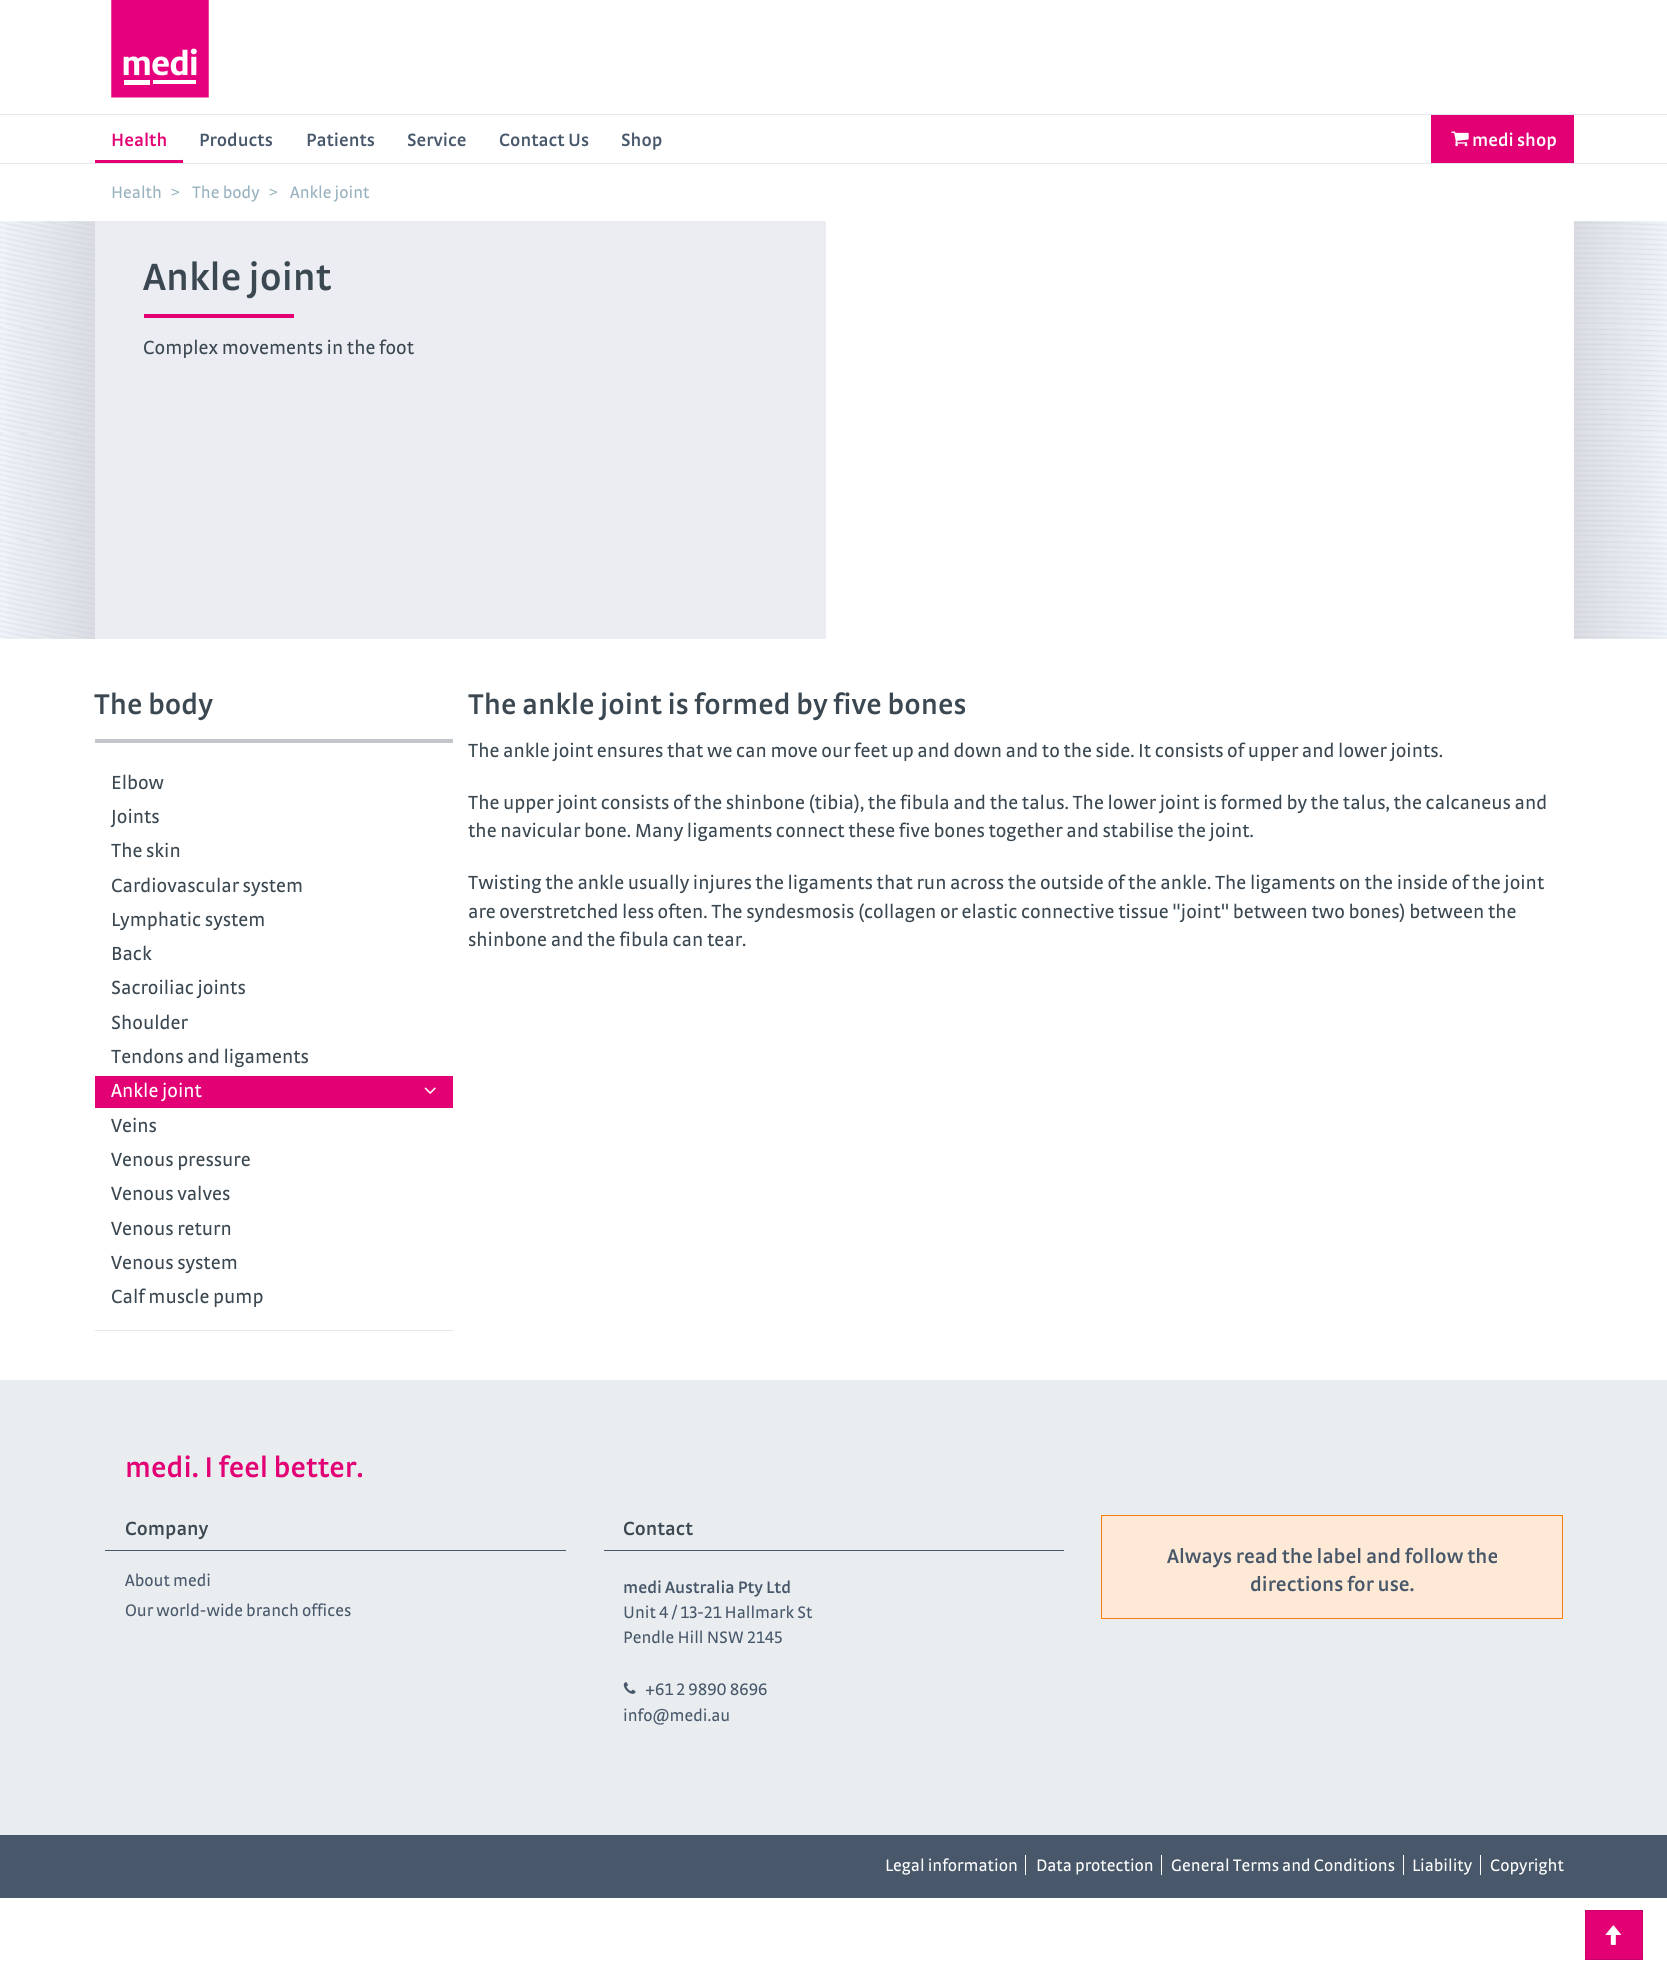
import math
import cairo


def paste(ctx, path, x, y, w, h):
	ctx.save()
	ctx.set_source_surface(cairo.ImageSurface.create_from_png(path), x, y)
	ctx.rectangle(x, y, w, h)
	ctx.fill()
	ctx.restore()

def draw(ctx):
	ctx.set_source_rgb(1, 1, 1)
	ctx.paint()
	paste(ctx, 'media/1.png', 111, 0, 98, 98)
	ctx.set_source_rgb(0.894, 0.906, 0.929)
	ctx.rectangle(0, 114, 1667, 1)
	ctx.fill()
	ctx.rectangle(0, 163, 1667, 1)
	ctx.fill()
	ctx.save()
	ctx.rectangle(95, 115, 88, 48)
	ctx.clip()
	ctx.set_source_rgb(0.886, 0, 0.455)
	ctx.set_fill_rule(cairo.FILL_RULE_EVEN_ODD)
	ctx.new_path()
	ctx.move_to(-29, -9)
	ctx.line_to(306, -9)
	ctx.line_to(306, 286)
	ctx.line_to(-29, 286)
	ctx.close_path()
	ctx.move_to(95, 110)
	ctx.line_to(182, 110)
	ctx.curve_to(183, 110, 184, 111, 184, 111)
	ctx.line_to(184, 159)
	ctx.curve_to(184, 159, 183, 160, 182, 160)
	ctx.line_to(95, 160)
	ctx.curve_to(94, 160, 94, 159, 94, 159)
	ctx.line_to(94, 111)
	ctx.curve_to(94, 111, 94, 110, 95, 110)
	ctx.close_path()
	ctx.fill()
	ctx.restore()
	ctx.select_font_face('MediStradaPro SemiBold')
	ctx.set_font_size(18.75)
	ctx.set_source_rgb(0.886, 0, 0.455)
	ctx.move_to(111, 146)
	ctx.show_text('Health')
	ctx.set_source_rgb(0.282, 0.345, 0.416)
	for x, y, s in [
		(199, 146, 'Products'),
		(306, 146, 'Patients'),
		(407, 146, 'Service'),
		(499, 146, 'Contact Us'),
		(621, 146, 'Shop'),
	]:
		ctx.move_to(x, y)
		ctx.show_text(s)
	ctx.set_source_rgb(0.886, 0, 0.455)
	ctx.rectangle(1431, 115, 143, 48)
	ctx.fill()
	paste(ctx, 'media/2.png', 1451, 131, 18, 16)
	ctx.set_source_rgb(1, 1, 1)
	ctx.move_to(1472, 146)
	ctx.show_text('medi shop')
	ctx.select_font_face('MediStradaPro')
	ctx.set_font_size(17.5)
	ctx.set_source_rgb(0.592, 0.694, 0.745)
	ctx.move_to(111, 198)
	ctx.show_text('Health')
	ctx.select_font_face('Source Sans Pro')
	ctx.move_to(171, 198)
	ctx.show_text('>')
	ctx.select_font_face('MediStradaPro')
	ctx.move_to(192, 198)
	ctx.show_text('The body')
	ctx.select_font_face('Source Sans Pro')
	ctx.move_to(269, 198)
	ctx.show_text('>')
	ctx.select_font_face('MediStradaPro')
	ctx.move_to(290, 198)
	ctx.show_text('Ankle joint')
	paste(ctx, 'media/3.png', 0, 221, 1667, 418)
	gradient = cairo.LinearGradient(-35, 430, 95, 430)
	gradient.add_color_stop_rgba(0, 0.765, 0.776, 0.796, 0)
	gradient.add_color_stop_rgba(0.25, 0.765, 0.776, 0.796, 0)
	gradient.add_color_stop_rgba(1, 0.765, 0.776, 0.796, 0.5)
	ctx.set_source(gradient)
	ctx.rectangle(6, 221, 89, 418)
	ctx.fill()
	ctx.set_source_rgb(1, 1, 1)
	ctx.rectangle(826, 221, 748, 418)
	ctx.fill()
	ctx.set_source_rgb(0.918, 0.929, 0.953)
	ctx.rectangle(95, 221, 731, 418)
	ctx.fill()
	ctx.select_font_face('MediStradaPro SemiBold')
	ctx.set_font_size(40)
	ctx.set_source_rgb(0.231, 0.282, 0.318)
	ctx.move_to(143, 290)
	ctx.show_text('Ankle joint')
	ctx.set_source_rgb(0.886, 0, 0.455)
	ctx.rectangle(144, 314, 150, 4)
	ctx.fill()
	ctx.select_font_face('MediStradaPro')
	ctx.set_font_size(20)
	ctx.set_source_rgb(0.231, 0.282, 0.318)
	ctx.move_to(143, 354)
	ctx.show_text('Complex movements in the foot')
	gradient = cairo.LinearGradient(1574, 430, 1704, 430)
	gradient.add_color_stop_rgba(0, 0.765, 0.776, 0.796, 0.5)
	gradient.add_color_stop_rgba(0.75, 0.765, 0.776, 0.796, 0)
	gradient.add_color_stop_rgba(1, 0.765, 0.776, 0.796, 0)
	ctx.set_source(gradient)
	ctx.rectangle(1574, 221, 89, 418)
	ctx.fill()
	ctx.set_source_rgb(0.894, 0.906, 0.929)
	ctx.rectangle(95, 1330, 358, 1)
	ctx.fill()
	ctx.set_source_rgb(0.765, 0.776, 0.796)
	ctx.rectangle(95, 739, 358, 4)
	ctx.fill()
	ctx.select_font_face('MediStradaPro SemiBold')
	ctx.set_font_size(30)
	ctx.set_source_rgb(0.231, 0.282, 0.318)
	ctx.move_to(94, 714)
	ctx.show_text('The body')
	ctx.select_font_face('MediStradaPro')
	ctx.set_font_size(20)
	for x, y, s in [
		(111, 789, 'Elbow'),
		(111, 823, 'Joints'),
		(111, 857, 'The skin'),
		(111, 892, 'Cardiovascular system'),
		(111, 926, 'Lymphatic system'),
		(111, 960, 'Back'),
		(111, 994, 'Sacroiliac joints'),
		(111, 1029, 'Shoulder'),
		(111, 1063, 'Tendons and ligaments'),
	]:
		ctx.move_to(x, y)
		ctx.show_text(s)
	ctx.set_source_rgb(0.886, 0, 0.455)
	ctx.rectangle(95, 1076, 358, 32)
	ctx.fill()
	ctx.set_source_rgb(1, 1, 1)
	ctx.move_to(111, 1097)
	ctx.show_text('Ankle joint')
	paste(ctx, 'media/4.png', 424, 1087, 12, 7)
	ctx.set_source_rgb(0.231, 0.282, 0.318)
	for x, y, s in [
		(111, 1132, 'Veins'),
		(111, 1166, 'Venous pressure'),
		(111, 1200, 'Venous valves'),
		(111, 1235, 'Venous return'),
		(111, 1269, 'Venous system'),
		(111, 1303, 'Calf muscle pump'),
	]:
		ctx.move_to(x, y)
		ctx.show_text(s)
	ctx.select_font_face('MediStradaPro SemiBold')
	ctx.set_font_size(30)
	ctx.move_to(468, 714)
	ctx.show_text('The ankle joint is formed by five bones')
	ctx.select_font_face('MediStradaPro')
	ctx.set_font_size(20)
	for x, y, s in [
		(468, 757, 'The ankle joint ensures that we can move our feet up and down and to the side. It consists of upper and lower joints.'),
		(468, 809, 'The upper joint consists of the shinbone (tibia), the fibula and the talus. The lower joint is formed by the talus, the calcaneus and'),
		(468, 837, 'the navicular bone. Many ligaments connect these five bones together and stabilise the joint.'),
		(468, 889, 'Twisting the ankle usually injures the ligaments that run across the outside of the ankle. The ligaments on the inside of the joint'),
		(468, 918, 'are overstretched less often. The syndesmosis (collagen or elastic connective tissue "joint" between two bones) between the'),
		(468, 946, 'shinbone and the fibula can tear.'),
	]:
		ctx.move_to(x, y)
		ctx.show_text(s)
	ctx.set_source_rgb(0.914, 0.929, 0.941)
	ctx.rectangle(0, 1380, 1667, 455)
	ctx.fill()
	ctx.select_font_face('MediStradaPro SemiBold')
	ctx.set_font_size(30)
	ctx.set_source_rgb(0.886, 0, 0.455)
	ctx.move_to(125, 1477)
	ctx.show_text('medi. I feel better.')
	ctx.set_source_rgb(0.282, 0.345, 0.416)
	ctx.rectangle(105, 1550, 461, 1)
	ctx.fill()
	ctx.set_font_size(20)
	ctx.set_source_rgb(0.231, 0.282, 0.318)
	ctx.move_to(125, 1535)
	ctx.show_text('Company')
	ctx.select_font_face('MediStradaPro')
	ctx.set_font_size(17.5)
	ctx.set_source_rgb(0.282, 0.345, 0.416)
	ctx.move_to(125, 1586)
	ctx.show_text('About medi')
	ctx.move_to(125, 1616)
	ctx.show_text('Our world-wide branch offices')
	ctx.rectangle(604, 1550, 460, 1)
	ctx.fill()
	ctx.select_font_face('MediStradaPro SemiBold')
	ctx.set_font_size(20)
	ctx.set_source_rgb(0.231, 0.282, 0.318)
	ctx.move_to(623, 1535)
	ctx.show_text('Contact')
	ctx.set_font_size(17.5)
	ctx.set_source_rgb(0.282, 0.345, 0.416)
	ctx.move_to(623, 1593)
	ctx.show_text('medi Australia Pty Ltd')
	ctx.select_font_face('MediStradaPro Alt')
	ctx.move_to(623, 1618)
	ctx.show_text('Unit 4 / 13-21 Hallmark St')
	ctx.move_to(623, 1643)
	ctx.show_text('Pendle Hill NSW 2145')
	paste(ctx, 'media/5.png', 623, 1682, 13, 12)
	ctx.move_to(645, 1695)
	ctx.show_text('+61 2 9890 8696')
	ctx.select_font_face('MediStradaPro')
	ctx.move_to(623, 1721)
	ctx.show_text('info@medi.au')
	ctx.set_source_rgb(0.996, 0.914, 0.839)
	ctx.rectangle(1101.5, 1515.5, 461, 103)
	ctx.fill_preserve()
	ctx.set_source_rgb(0.988, 0.494, 0.047)
	ctx.set_line_width(1)
	ctx.stroke()
	ctx.select_font_face('MediStradaPro SemiBold')
	ctx.set_font_size(21)
	ctx.set_source_rgb(0.282, 0.345, 0.416)
	ctx.move_to(1167, 1563)
	ctx.show_text('Always read the label and follow the')
	ctx.move_to(1250, 1591)
	ctx.show_text('directions for use.')
	ctx.rectangle(0, 1835, 1667, 63)
	ctx.fill()
	ctx.select_font_face('MediStradaPro')
	ctx.set_font_size(17.5)
	ctx.set_source_rgb(1, 1, 1)
	ctx.move_to(885, 1871)
	ctx.show_text('Legal information')
	ctx.rectangle(1025, 1855, 1, 20)
	ctx.fill()
	ctx.move_to(1036, 1871)
	ctx.show_text('Data protection')
	ctx.rectangle(1161, 1855, 1, 20)
	ctx.fill()
	ctx.move_to(1171, 1871)
	ctx.show_text('General Terms and Conditions')
	ctx.rectangle(1403, 1855, 1, 20)
	ctx.fill()
	ctx.move_to(1412, 1871)
	ctx.show_text('Liability')
	ctx.rectangle(1480, 1855, 1, 20)
	ctx.fill()
	ctx.move_to(1490, 1871)
	ctx.show_text('Copyright')
	ctx.set_source_rgb(0.886, 0, 0.455)
	ctx.rectangle(1585.5, 1910.5, 57, 49)
	ctx.fill_preserve()
	ctx.set_source_rgb(0.788, 0, 0.404)
	ctx.stroke()
	paste(ctx, 'media/6.png', 1605, 1925, 17, 20)


surface = cairo.ImageSurface(cairo.FORMAT_RGB24, 1667, 1985)
ctx = cairo.Context(surface)
options = cairo.FontOptions()
options.set_hint_metrics(cairo.HINT_METRICS_OFF)
options.set_hint_style(cairo.HINT_STYLE_NONE)
ctx.set_font_options(options)
ctx.set_miter_limit(4)
draw(ctx)
surface.write_to_png('image.png')
